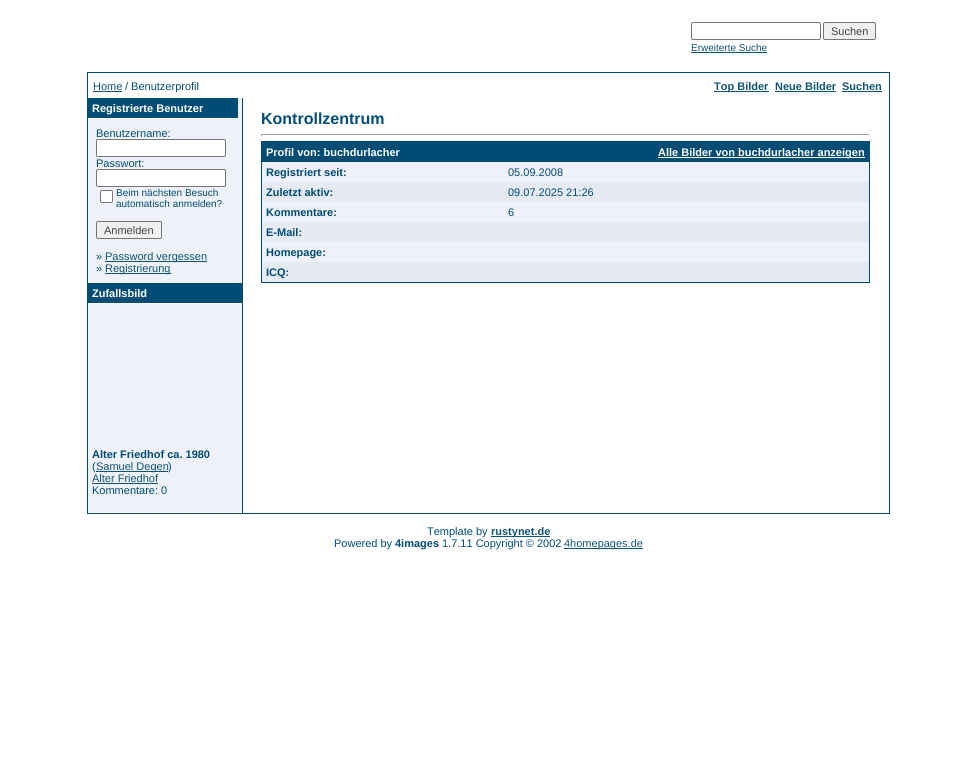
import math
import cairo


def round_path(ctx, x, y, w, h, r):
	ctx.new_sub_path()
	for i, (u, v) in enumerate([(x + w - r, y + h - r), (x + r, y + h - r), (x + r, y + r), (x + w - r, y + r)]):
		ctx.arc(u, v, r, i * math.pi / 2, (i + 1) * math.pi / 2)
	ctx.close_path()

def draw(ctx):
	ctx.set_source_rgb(1, 1, 1)
	ctx.paint()
	round_path(ctx, 691.5, 22.5, 129, 17, 1.5)
	ctx.set_source_rgb(0.463, 0.463, 0.463)
	ctx.set_line_width(1)
	ctx.stroke()
	ctx.set_source_rgb(0.937, 0.937, 0.937)
	round_path(ctx, 823.5, 22.5, 52, 17, 1.5)
	ctx.fill_preserve()
	ctx.set_source_rgb(0.463, 0.463, 0.463)
	ctx.stroke()
	ctx.select_font_face('Liberation Sans')
	ctx.set_font_size(11)
	ctx.set_source_rgb(0.267, 0.267, 0.267)
	ctx.move_to(831, 35)
	ctx.show_text('Suchen')
	ctx.set_font_size(10)
	ctx.set_source_rgb(0.059, 0.329, 0.459)
	ctx.move_to(691, 51)
	ctx.show_text('Erweiterte Suche')
	ctx.rectangle(691, 52, 76, 1)
	ctx.fill()
	ctx.set_source_rgb(0, 0.298, 0.459)
	ctx.rectangle(87, 72, 803, 442)
	ctx.fill()
	ctx.set_source_rgb(1, 1, 1)
	ctx.rectangle(88, 73, 801, 440)
	ctx.fill()
	ctx.set_font_size(11)
	ctx.set_source_rgb(0.059, 0.329, 0.459)
	ctx.move_to(93, 90)
	ctx.show_text('Home')
	ctx.rectangle(93, 91, 29, 1)
	ctx.fill()
	ctx.set_source_rgb(0, 0.298, 0.459)
	ctx.move_to(125, 90)
	ctx.show_text('/ Benutzerprofil')
	ctx.set_source_rgb(0.059, 0.329, 0.459)
	ctx.rectangle(714, 91, 55, 1)
	ctx.fill()
	ctx.select_font_face('Liberation Sans', cairo.FONT_SLANT_NORMAL, cairo.FONT_WEIGHT_BOLD)
	ctx.move_to(714, 90)
	ctx.show_text('Top Bilder')
	ctx.move_to(775, 90)
	ctx.show_text('Neue Bilder')
	ctx.rectangle(775, 91, 61, 1)
	ctx.fill()
	ctx.move_to(842, 90)
	ctx.show_text('Suchen')
	ctx.rectangle(842, 91, 40, 1)
	ctx.fill()
	ctx.set_source_rgb(0.933, 0.945, 0.965)
	ctx.rectangle(88, 98, 154, 414)
	ctx.fill()
	ctx.set_source_rgb(0, 0.298, 0.459)
	ctx.rectangle(88, 98, 150, 20)
	ctx.fill()
	ctx.set_source_rgb(1, 1, 1)
	ctx.move_to(92, 112)
	ctx.show_text('Registrierte Benutzer')
	ctx.rectangle(88, 118, 150, 1)
	ctx.fill()
	ctx.select_font_face('Liberation Sans')
	ctx.set_source_rgb(0, 0.298, 0.459)
	ctx.move_to(96, 137)
	ctx.show_text('Benutzername:')
	ctx.set_source_rgb(1, 1, 1)
	round_path(ctx, 96.5, 139.5, 129, 17, 1.5)
	ctx.fill_preserve()
	ctx.set_source_rgb(0.463, 0.463, 0.463)
	ctx.stroke()
	ctx.set_source_rgb(0, 0.298, 0.459)
	ctx.move_to(96, 167)
	ctx.show_text('Passwort:')
	ctx.set_source_rgb(1, 1, 1)
	round_path(ctx, 96.5, 169.5, 129, 17, 1.5)
	ctx.fill_preserve()
	ctx.set_source_rgb(0.463, 0.463, 0.463)
	ctx.stroke()
	ctx.set_source_rgb(1, 1, 1)
	round_path(ctx, 100.5, 190.5, 12, 12, 1.5)
	ctx.fill_preserve()
	ctx.set_source_rgb(0.463, 0.463, 0.463)
	ctx.stroke()
	ctx.set_font_size(10)
	ctx.set_source_rgb(0, 0.298, 0.459)
	ctx.move_to(116, 196)
	ctx.show_text('Beim nächsten Besuch')
	ctx.move_to(116, 207)
	ctx.show_text('automatisch anmelden?')
	ctx.set_source_rgb(0.937, 0.937, 0.937)
	round_path(ctx, 96.5, 221.5, 65, 17, 1.5)
	ctx.fill_preserve()
	ctx.set_source_rgb(0.463, 0.463, 0.463)
	ctx.stroke()
	ctx.set_font_size(11)
	ctx.set_source_rgb(0.267, 0.267, 0.267)
	ctx.move_to(104, 234)
	ctx.show_text('Anmelden')
	ctx.set_source_rgb(0, 0.298, 0.459)
	ctx.move_to(96, 260)
	ctx.show_text('»')
	ctx.set_source_rgb(0.059, 0.329, 0.459)
	ctx.rectangle(105, 261, 102, 1)
	ctx.fill()
	ctx.move_to(105, 260)
	ctx.show_text('Password vergessen')
	ctx.set_source_rgb(0, 0.298, 0.459)
	ctx.move_to(96, 272)
	ctx.show_text('»')
	ctx.set_source_rgb(0.059, 0.329, 0.459)
	ctx.rectangle(105, 273, 66, 1)
	ctx.fill()
	ctx.move_to(105, 272)
	ctx.show_text('Registrierung')
	ctx.set_source_rgb(1, 1, 1)
	ctx.rectangle(88, 282, 150, 1)
	ctx.fill()
	ctx.set_source_rgb(0, 0.298, 0.459)
	ctx.rectangle(88, 283, 154, 20)
	ctx.fill()
	ctx.select_font_face('Liberation Sans', cairo.FONT_SLANT_NORMAL, cairo.FONT_WEIGHT_BOLD)
	ctx.set_source_rgb(1, 1, 1)
	ctx.move_to(92, 297)
	ctx.show_text('Zufallsbild')
	ctx.rectangle(88, 303, 154, 1)
	ctx.fill()
	ctx.set_source_rgb(0, 0.298, 0.459)
	ctx.move_to(92, 458)
	ctx.show_text('Alter Friedhof ca. 1980')
	ctx.select_font_face('Liberation Sans')
	ctx.move_to(92, 470)
	ctx.show_text('(')
	ctx.set_source_rgb(0.059, 0.329, 0.459)
	ctx.rectangle(96, 471, 72, 1)
	ctx.fill()
	ctx.move_to(96, 470)
	ctx.show_text('Samuel Degen')
	ctx.set_source_rgb(0, 0.298, 0.459)
	ctx.move_to(168, 470)
	ctx.show_text(')')
	ctx.set_source_rgb(0.059, 0.329, 0.459)
	ctx.move_to(92, 482)
	ctx.show_text('Alter Friedhof')
	ctx.rectangle(92, 483, 66, 1)
	ctx.fill()
	ctx.set_source_rgb(0, 0.298, 0.459)
	ctx.move_to(92, 494)
	ctx.show_text('Kommentare: 0')
	ctx.rectangle(242, 98, 1, 415)
	ctx.fill()
	ctx.select_font_face('Liberation Sans', cairo.FONT_SLANT_NORMAL, cairo.FONT_WEIGHT_BOLD)
	ctx.set_font_size(16)
	ctx.move_to(261, 124)
	ctx.show_text('Kontrollzentrum')
	ctx.set_source_rgb(0.624, 0.624, 0.624)
	ctx.rectangle(261, 134, 609, 1)
	ctx.fill()
	ctx.set_source_rgb(0.933, 0.933, 0.933)
	ctx.rectangle(869, 134, 1, 2)
	ctx.fill()
	ctx.set_source_rgb(0.624, 0.624, 0.624)
	ctx.rectangle(261, 134, 1, 2)
	ctx.fill()
	ctx.set_source_rgb(0, 0.298, 0.459)
	ctx.rectangle(261, 141, 609, 142)
	ctx.fill()
	ctx.set_font_size(11)
	ctx.set_source_rgb(1, 1, 1)
	ctx.move_to(266, 156)
	ctx.show_text('Profil von: buchdurlacher')
	ctx.rectangle(658, 157, 207, 1)
	ctx.fill()
	ctx.move_to(658, 156)
	ctx.show_text('Alle Bilder von buchdurlacher anzeigen')
	ctx.set_source_rgb(0.933, 0.945, 0.965)
	ctx.rectangle(262, 162, 607, 20)
	ctx.fill()
	ctx.set_source_rgb(0, 0.298, 0.459)
	ctx.move_to(266, 176)
	ctx.show_text('Registriert seit:')
	ctx.select_font_face('Liberation Sans')
	ctx.move_to(508, 176)
	ctx.show_text('05.09.2008')
	ctx.set_source_rgb(0.898, 0.914, 0.949)
	ctx.rectangle(262, 182, 607, 20)
	ctx.fill()
	ctx.select_font_face('Liberation Sans', cairo.FONT_SLANT_NORMAL, cairo.FONT_WEIGHT_BOLD)
	ctx.set_source_rgb(0, 0.298, 0.459)
	ctx.move_to(266, 196)
	ctx.show_text('Zuletzt aktiv:')
	ctx.select_font_face('Liberation Sans')
	ctx.move_to(508, 196)
	ctx.show_text('09.07.2025 21:26')
	ctx.set_source_rgb(0.933, 0.945, 0.965)
	ctx.rectangle(262, 202, 607, 20)
	ctx.fill()
	ctx.select_font_face('Liberation Sans', cairo.FONT_SLANT_NORMAL, cairo.FONT_WEIGHT_BOLD)
	ctx.set_source_rgb(0, 0.298, 0.459)
	ctx.move_to(266, 216)
	ctx.show_text('Kommentare:')
	ctx.select_font_face('Liberation Sans')
	ctx.move_to(508, 216)
	ctx.show_text('6')
	ctx.set_source_rgb(0.898, 0.914, 0.949)
	ctx.rectangle(262, 222, 607, 20)
	ctx.fill()
	ctx.select_font_face('Liberation Sans', cairo.FONT_SLANT_NORMAL, cairo.FONT_WEIGHT_BOLD)
	ctx.set_source_rgb(0, 0.298, 0.459)
	ctx.move_to(266, 236)
	ctx.show_text('E-Mail:')
	ctx.set_source_rgb(0.933, 0.945, 0.965)
	ctx.rectangle(262, 242, 607, 20)
	ctx.fill()
	ctx.set_source_rgb(0, 0.298, 0.459)
	ctx.move_to(266, 256)
	ctx.show_text('Homepage:')
	ctx.set_source_rgb(0.898, 0.914, 0.949)
	ctx.rectangle(262, 262, 607, 20)
	ctx.fill()
	ctx.set_source_rgb(0, 0.298, 0.459)
	ctx.move_to(266, 276)
	ctx.show_text('ICQ:')
	ctx.select_font_face('Liberation Sans')
	ctx.move_to(427, 535)
	ctx.show_text('Template by')
	ctx.set_source_rgb(0.059, 0.329, 0.459)
	ctx.rectangle(491, 536, 59, 1)
	ctx.fill()
	ctx.select_font_face('Liberation Sans', cairo.FONT_SLANT_NORMAL, cairo.FONT_WEIGHT_BOLD)
	ctx.move_to(491, 535)
	ctx.show_text('rustynet.de')
	ctx.select_font_face('Liberation Sans')
	ctx.set_source_rgb(0, 0.298, 0.459)
	ctx.move_to(334, 547)
	ctx.show_text('Powered by')
	ctx.select_font_face('Liberation Sans', cairo.FONT_SLANT_NORMAL, cairo.FONT_WEIGHT_BOLD)
	ctx.move_to(395, 547)
	ctx.show_text('4images')
	ctx.select_font_face('Liberation Sans')
	ctx.move_to(442, 547)
	ctx.show_text('1.7.11 Copyright © 2002')
	ctx.set_source_rgb(0.059, 0.329, 0.459)
	ctx.rectangle(564, 548, 79, 1)
	ctx.fill()
	ctx.move_to(564, 547)
	ctx.show_text('4homepages.de')


surface = cairo.ImageSurface(cairo.FORMAT_RGB24, 977, 780)
ctx = cairo.Context(surface)
options = cairo.FontOptions()
options.set_hint_metrics(cairo.HINT_METRICS_OFF)
options.set_hint_style(cairo.HINT_STYLE_NONE)
ctx.set_font_options(options)
ctx.set_miter_limit(4)
draw(ctx)
surface.write_to_png('image.png')
